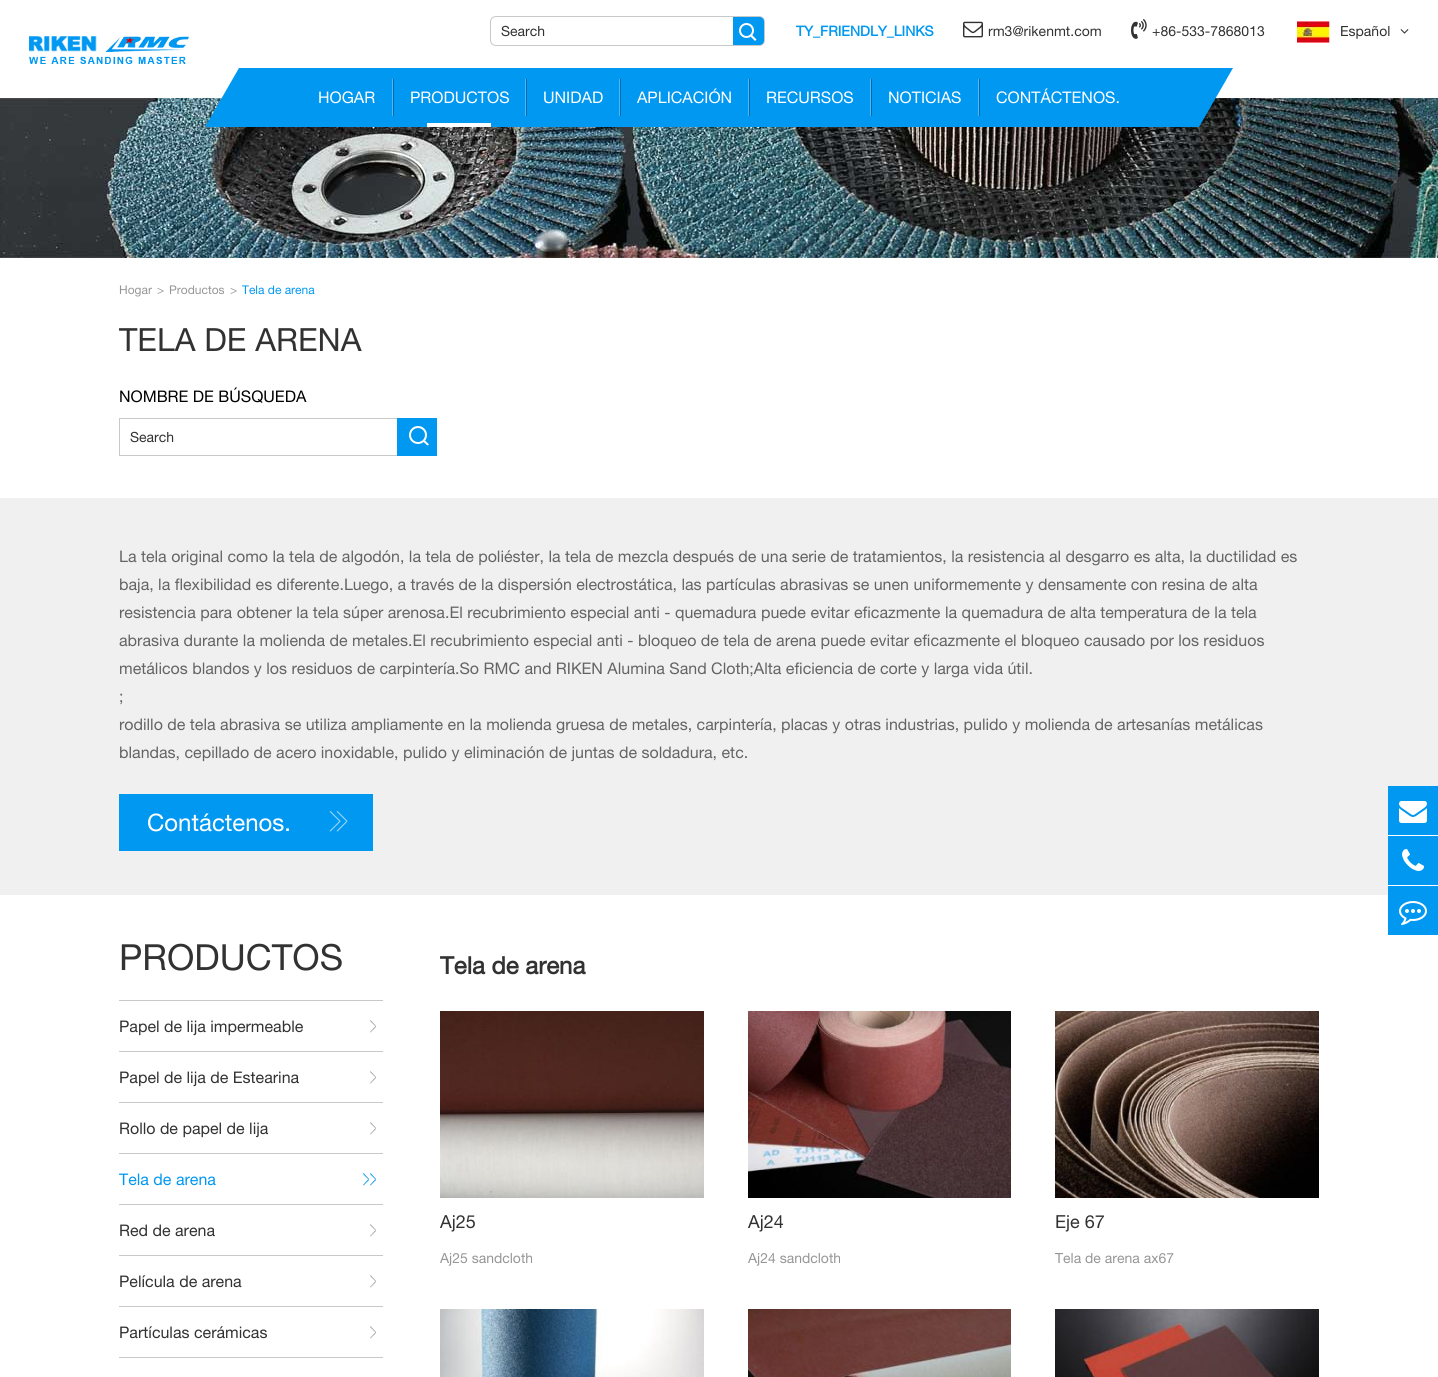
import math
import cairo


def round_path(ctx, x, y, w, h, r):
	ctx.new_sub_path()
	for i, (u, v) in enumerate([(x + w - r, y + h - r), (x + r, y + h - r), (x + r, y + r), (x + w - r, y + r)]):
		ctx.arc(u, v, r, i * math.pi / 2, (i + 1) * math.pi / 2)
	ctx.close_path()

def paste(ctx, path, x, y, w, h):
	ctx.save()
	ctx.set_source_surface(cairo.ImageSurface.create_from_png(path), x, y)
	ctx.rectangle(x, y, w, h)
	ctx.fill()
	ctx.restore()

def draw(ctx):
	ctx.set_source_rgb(1, 1, 1)
	ctx.paint()
	paste(ctx, 'media/1.png', 29, 36, 160, 28)
	round_path(ctx, 490.5, 16.5, 274, 29, 5.5)
	ctx.set_source_rgb(0.784, 0.784, 0.784)
	ctx.set_line_width(1)
	ctx.stroke()
	ctx.select_font_face('Helvetica Neue')
	ctx.set_font_size(14)
	ctx.set_source_rgb(0.196, 0.196, 0.196)
	ctx.move_to(501, 36)
	ctx.show_text('Search')
	ctx.set_source_rgb(0.004, 0.596, 0.945)
	ctx.new_path()
	ctx.move_to(733, 17)
	ctx.line_to(760, 17)
	ctx.curve_to(762, 17, 764, 19, 764, 21)
	ctx.line_to(764, 41)
	ctx.curve_to(764, 43, 762, 45, 760, 45)
	ctx.line_to(733, 45)
	ctx.close_path()
	ctx.fill()
	ctx.arc(746.5, 30.5, 6.5, 0, 2 * math.pi)
	ctx.set_source_rgb(1, 1, 1)
	ctx.set_line_width(2)
	ctx.stroke()
	ctx.new_path()
	ctx.move_to(752, 35)
	ctx.line_to(756.5, 39.5)
	ctx.line_to(755, 41)
	ctx.line_to(750.5, 36.5)
	ctx.close_path()
	ctx.fill()
	ctx.select_font_face('Helvetica Neue', cairo.FONT_SLANT_NORMAL, cairo.FONT_WEIGHT_BOLD)
	ctx.set_source_rgb(0.004, 0.596, 0.945)
	ctx.move_to(796, 36)
	ctx.show_text('TY_FRIENDLY_LINKS')
	paste(ctx, 'media/2.png', 963, 21, 20, 17)
	ctx.select_font_face('Helvetica Neue')
	ctx.set_source_rgb(0.196, 0.196, 0.196)
	ctx.move_to(988, 36)
	ctx.show_text('rm3@rikenmt.com')
	paste(ctx, 'media/3.png', 1131, 19, 16, 20)
	ctx.move_to(1152, 36)
	ctx.show_text('+86-533-7868013')
	paste(ctx, 'media/4.png', 1297, 21, 33, 22)
	ctx.move_to(1340, 36)
	ctx.show_text('Español')
	paste(ctx, 'media/5.png', 1400, 29, 9, 5)
	paste(ctx, 'media/6.png', 0, 98, 1438, 160)
	ctx.set_source_rgb(0.004, 0.596, 0.945)
	ctx.rectangle(239, 68, 960, 59)
	ctx.fill()
	ctx.new_path()
	ctx.move_to(273, 127)
	ctx.line_to(205, 127)
	ctx.line_to(239, 68)
	ctx.close_path()
	ctx.fill()
	ctx.set_source_rgb(0.302, 0.718, 0.961)
	ctx.rectangle(392, 79, 1, 37)
	ctx.fill()
	ctx.set_font_size(16)
	ctx.set_source_rgb(1, 1, 1)
	ctx.move_to(318, 103)
	ctx.show_text('HOGAR')
	ctx.set_source_rgb(0.302, 0.718, 0.961)
	ctx.rectangle(525, 79, 1, 37)
	ctx.fill()
	ctx.set_source_rgb(0.004, 0.416, 0.663)
	ctx.rectangle(393, 79, 1, 37)
	ctx.fill()
	ctx.set_source_rgb(1, 1, 1)
	ctx.move_to(410, 103)
	ctx.show_text('PRODUCTOS')
	ctx.rectangle(427, 123, 64, 4)
	ctx.fill()
	ctx.set_source_rgb(0.302, 0.718, 0.961)
	ctx.rectangle(619, 79, 1, 37)
	ctx.fill()
	ctx.set_source_rgb(0.004, 0.416, 0.663)
	ctx.rectangle(526, 79, 1, 37)
	ctx.fill()
	ctx.set_source_rgb(1, 1, 1)
	ctx.move_to(543, 103)
	ctx.show_text('UNIDAD')
	ctx.set_source_rgb(0.302, 0.718, 0.961)
	ctx.rectangle(748, 79, 1, 37)
	ctx.fill()
	ctx.set_source_rgb(0.004, 0.416, 0.663)
	ctx.rectangle(620, 79, 1, 37)
	ctx.fill()
	ctx.set_source_rgb(1, 1, 1)
	ctx.move_to(637, 103)
	ctx.show_text('APLICACIÓN')
	ctx.set_source_rgb(0.302, 0.718, 0.961)
	ctx.rectangle(870, 79, 1, 37)
	ctx.fill()
	ctx.set_source_rgb(0.004, 0.416, 0.663)
	ctx.rectangle(749, 79, 1, 37)
	ctx.fill()
	ctx.set_source_rgb(1, 1, 1)
	ctx.move_to(766, 103)
	ctx.show_text('RECURSOS')
	ctx.set_source_rgb(0.302, 0.718, 0.961)
	ctx.rectangle(978, 79, 1, 37)
	ctx.fill()
	ctx.set_source_rgb(0.004, 0.416, 0.663)
	ctx.rectangle(871, 79, 1, 37)
	ctx.fill()
	ctx.set_source_rgb(1, 1, 1)
	ctx.move_to(888, 103)
	ctx.show_text('NOTICIAS')
	ctx.set_source_rgb(0.004, 0.416, 0.663)
	ctx.rectangle(979, 79, 1, 37)
	ctx.fill()
	ctx.set_source_rgb(1, 1, 1)
	ctx.move_to(996, 103)
	ctx.show_text('CONTÁCTENOS.')
	ctx.set_source_rgb(0.004, 0.596, 0.945)
	ctx.new_path()
	ctx.move_to(1165, 68)
	ctx.line_to(1233, 68)
	ctx.line_to(1199, 127)
	ctx.close_path()
	ctx.fill()
	ctx.set_font_size(12)
	ctx.set_source_rgb(0.588, 0.588, 0.588)
	for x, y, s in [
		(119, 294, 'Hogar'),
		(157, 294, '>'),
		(169, 294, 'Productos'),
		(230, 294, '>'),
	]:
		ctx.move_to(x, y)
		ctx.show_text(s)
	ctx.set_source_rgb(0.004, 0.596, 0.945)
	ctx.move_to(242, 294)
	ctx.show_text('Tela de arena')
	ctx.set_font_size(32)
	ctx.set_source_rgb(0.196, 0.196, 0.196)
	ctx.move_to(119, 351)
	ctx.show_text('TELA DE ARENA')
	ctx.set_font_size(16)
	ctx.set_source_rgb(0, 0, 0)
	ctx.move_to(119, 402)
	ctx.show_text('NOMBRE DE BÚSQUEDA')
	ctx.rectangle(119.5, 418.5, 317, 37)
	ctx.set_source_rgb(0.784, 0.784, 0.784)
	ctx.set_line_width(1)
	ctx.stroke()
	ctx.set_font_size(14)
	ctx.set_source_rgb(0.196, 0.196, 0.196)
	ctx.move_to(130, 442)
	ctx.show_text('Search')
	ctx.set_source_rgb(0.004, 0.596, 0.945)
	ctx.rectangle(397, 418, 40, 38)
	ctx.fill()
	ctx.arc(418, 435, 8, 0, 2 * math.pi)
	ctx.set_source_rgb(1, 1, 1)
	ctx.set_line_width(2)
	ctx.stroke()
	ctx.new_path()
	ctx.move_to(424.5, 440)
	ctx.line_to(429, 444.5)
	ctx.line_to(427.5, 445.5)
	ctx.line_to(423, 441.5)
	ctx.close_path()
	ctx.fill()
	ctx.set_source_rgb(0.941, 0.941, 0.941)
	ctx.rectangle(0, 498, 1438, 397)
	ctx.fill()
	ctx.set_font_size(16)
	ctx.set_source_rgb(0.392, 0.392, 0.392)
	for x, y, s in [
		(119, 562, 'La tela original como la tela de algodón, la tela de poliéster, la tela de mezcla después de una serie de tratamientos, la resistencia al desgarro es alta, la ductilidad es'),
		(119, 590, 'baja, la flexibilidad es diferente.Luego, a través de la dispersión electrostática, las partículas abrasivas se unen uniformemente y densamente con resina de alta'),
		(119, 618, 'resistencia para obtener la tela súper arenosa.El recubrimiento especial anti - quemadura puede evitar eficazmente la quemadura de alta temperatura de la tela'),
		(119, 646, 'abrasiva durante la molienda de metales.El recubrimiento especial anti - bloqueo de tela de arena puede evitar eficazmente el bloqueo causado por los residuos'),
		(119, 674, 'metálicos blandos y los residuos de carpintería.So RMC and RIKEN Alumina Sand Cloth;Alta eficiencia de corte y larga vida útil.'),
		(119, 702, ';'),
		(119, 730, 'rodillo de tela abrasiva se utiliza ampliamente en la molienda gruesa de metales, carpintería, placas y otras industrias, pulido y molienda de artesanías metálicas'),
		(119, 758, 'blandas, cepillado de acero inoxidable, pulido y eliminación de juntas de soldadura, etc.'),
	]:
		ctx.move_to(x, y)
		ctx.show_text(s)
	ctx.set_source_rgb(0.004, 0.596, 0.945)
	ctx.rectangle(119, 794, 254, 57)
	ctx.fill()
	ctx.set_font_size(24)
	ctx.set_source_rgb(1, 1, 1)
	ctx.move_to(147, 831)
	ctx.show_text('Contáctenos.')
	ctx.set_source_rgb(0.635, 0.851, 0.98)
	ctx.new_path()
	ctx.move_to(336.5, 831)
	ctx.line_to(346.5, 821)
	ctx.line_to(347.5, 821.5)
	ctx.line_to(337.5, 831.5)
	ctx.close_path()
	ctx.fill()
	ctx.new_path()
	ctx.move_to(329.5, 831)
	ctx.line_to(339.5, 821)
	ctx.line_to(340.5, 821.5)
	ctx.line_to(330.5, 831.5)
	ctx.close_path()
	ctx.fill()
	ctx.new_path()
	ctx.move_to(330.5, 811)
	ctx.line_to(340.5, 821)
	ctx.line_to(339.5, 821.5)
	ctx.line_to(329.5, 811.5)
	ctx.close_path()
	ctx.fill()
	ctx.new_path()
	ctx.move_to(337.5, 811)
	ctx.line_to(347.5, 821)
	ctx.line_to(346.5, 821.5)
	ctx.line_to(336.5, 811.5)
	ctx.close_path()
	ctx.fill()
	ctx.set_source_rgb(0.784, 0.784, 0.784)
	ctx.rectangle(119, 1000, 264, 1)
	ctx.fill()
	ctx.set_font_size(36)
	ctx.set_source_rgb(0.196, 0.196, 0.196)
	ctx.move_to(119, 970)
	ctx.show_text('PRODUCTOS')
	ctx.set_source_rgb(0.784, 0.784, 0.784)
	ctx.rectangle(119, 1051, 264, 1)
	ctx.fill()
	ctx.set_font_size(16)
	ctx.set_source_rgb(0.196, 0.196, 0.196)
	ctx.move_to(119, 1032)
	ctx.show_text('Papel de lija impermeable')
	ctx.set_source_rgb(0.651, 0.651, 0.651)
	ctx.new_path()
	ctx.move_to(370, 1032)
	ctx.line_to(375.5, 1026)
	ctx.line_to(376, 1027)
	ctx.line_to(370.5, 1032.5)
	ctx.close_path()
	ctx.fill()
	ctx.new_path()
	ctx.move_to(370.5, 1020)
	ctx.line_to(376, 1026)
	ctx.line_to(375.5, 1026.5)
	ctx.line_to(370, 1021)
	ctx.close_path()
	ctx.fill()
	ctx.set_source_rgb(0.784, 0.784, 0.784)
	ctx.rectangle(119, 1102, 264, 1)
	ctx.fill()
	ctx.set_source_rgb(0.196, 0.196, 0.196)
	ctx.move_to(119, 1083)
	ctx.show_text('Papel de lija de Estearina')
	ctx.set_source_rgb(0.651, 0.651, 0.651)
	ctx.new_path()
	ctx.move_to(370, 1083)
	ctx.line_to(375.5, 1077)
	ctx.line_to(376, 1078)
	ctx.line_to(370.5, 1083.5)
	ctx.close_path()
	ctx.fill()
	ctx.new_path()
	ctx.move_to(370.5, 1071)
	ctx.line_to(376, 1077)
	ctx.line_to(375.5, 1077.5)
	ctx.line_to(370, 1072)
	ctx.close_path()
	ctx.fill()
	ctx.set_source_rgb(0.784, 0.784, 0.784)
	ctx.rectangle(119, 1153, 264, 1)
	ctx.fill()
	ctx.set_source_rgb(0.196, 0.196, 0.196)
	ctx.move_to(119, 1134)
	ctx.show_text('Rollo de papel de lija')
	ctx.set_source_rgb(0.651, 0.651, 0.651)
	ctx.new_path()
	ctx.move_to(370, 1134)
	ctx.line_to(375.5, 1128)
	ctx.line_to(376, 1129)
	ctx.line_to(370.5, 1134.5)
	ctx.close_path()
	ctx.fill()
	ctx.new_path()
	ctx.move_to(370.5, 1122)
	ctx.line_to(376, 1128)
	ctx.line_to(375.5, 1128.5)
	ctx.line_to(370, 1123)
	ctx.close_path()
	ctx.fill()
	ctx.set_source_rgb(0.784, 0.784, 0.784)
	ctx.rectangle(119, 1204, 264, 1)
	ctx.fill()
	ctx.set_source_rgb(0.004, 0.596, 0.945)
	ctx.move_to(119, 1185)
	ctx.show_text('Tela de arena')
	ctx.new_path()
	ctx.move_to(363, 1185)
	ctx.line_to(368.5, 1179)
	ctx.line_to(369, 1180)
	ctx.line_to(363.5, 1185.5)
	ctx.close_path()
	ctx.fill()
	ctx.new_path()
	ctx.move_to(363.5, 1173)
	ctx.line_to(369, 1179)
	ctx.line_to(368.5, 1179.5)
	ctx.line_to(363, 1174)
	ctx.close_path()
	ctx.fill()
	ctx.new_path()
	ctx.move_to(370, 1185)
	ctx.line_to(375.5, 1179)
	ctx.line_to(376, 1180)
	ctx.line_to(370.5, 1185.5)
	ctx.close_path()
	ctx.fill()
	ctx.new_path()
	ctx.move_to(370.5, 1173)
	ctx.line_to(376, 1179)
	ctx.line_to(375.5, 1179.5)
	ctx.line_to(370, 1174)
	ctx.close_path()
	ctx.fill()
	ctx.set_source_rgb(0.784, 0.784, 0.784)
	ctx.rectangle(119, 1255, 264, 1)
	ctx.fill()
	ctx.set_source_rgb(0.196, 0.196, 0.196)
	ctx.move_to(119, 1236)
	ctx.show_text('Red de arena')
	ctx.set_source_rgb(0.651, 0.651, 0.651)
	ctx.new_path()
	ctx.move_to(370, 1236)
	ctx.line_to(375.5, 1230)
	ctx.line_to(376, 1231)
	ctx.line_to(370.5, 1236.5)
	ctx.close_path()
	ctx.fill()
	ctx.new_path()
	ctx.move_to(370.5, 1224)
	ctx.line_to(376, 1230)
	ctx.line_to(375.5, 1230.5)
	ctx.line_to(370, 1225)
	ctx.close_path()
	ctx.fill()
	ctx.set_source_rgb(0.784, 0.784, 0.784)
	ctx.rectangle(119, 1306, 264, 1)
	ctx.fill()
	ctx.set_source_rgb(0.196, 0.196, 0.196)
	ctx.move_to(119, 1287)
	ctx.show_text('Película de arena')
	ctx.set_source_rgb(0.651, 0.651, 0.651)
	ctx.new_path()
	ctx.move_to(370, 1287)
	ctx.line_to(375.5, 1281)
	ctx.line_to(376, 1282)
	ctx.line_to(370.5, 1287.5)
	ctx.close_path()
	ctx.fill()
	ctx.new_path()
	ctx.move_to(370.5, 1275)
	ctx.line_to(376, 1281)
	ctx.line_to(375.5, 1281.5)
	ctx.line_to(370, 1276)
	ctx.close_path()
	ctx.fill()
	ctx.set_source_rgb(0.784, 0.784, 0.784)
	ctx.rectangle(119, 1357, 264, 1)
	ctx.fill()
	ctx.set_source_rgb(0.196, 0.196, 0.196)
	ctx.move_to(119, 1338)
	ctx.show_text('Partículas cerámicas')
	ctx.set_source_rgb(0.651, 0.651, 0.651)
	ctx.new_path()
	ctx.move_to(370, 1338)
	ctx.line_to(375.5, 1332)
	ctx.line_to(376, 1333)
	ctx.line_to(370.5, 1338.5)
	ctx.close_path()
	ctx.fill()
	ctx.new_path()
	ctx.move_to(370.5, 1326)
	ctx.line_to(376, 1332)
	ctx.line_to(375.5, 1332.5)
	ctx.line_to(370, 1327)
	ctx.close_path()
	ctx.fill()
	ctx.select_font_face('Helvetica Neue', cairo.FONT_SLANT_NORMAL, cairo.FONT_WEIGHT_BOLD)
	ctx.set_font_size(24)
	ctx.set_source_rgb(0.196, 0.196, 0.196)
	ctx.move_to(440, 974)
	ctx.show_text('Tela de arena')
	paste(ctx, 'media/7.png', 440, 1011, 264, 187)
	ctx.select_font_face('Helvetica Neue')
	ctx.set_font_size(18)
	ctx.move_to(440, 1228)
	ctx.show_text('Aj25')
	ctx.set_font_size(14)
	ctx.set_source_rgb(0.588, 0.588, 0.588)
	ctx.move_to(440, 1263)
	ctx.show_text('Aj25 sandcloth')
	paste(ctx, 'media/8.png', 748, 1011, 263, 187)
	ctx.set_font_size(18)
	ctx.set_source_rgb(0.196, 0.196, 0.196)
	ctx.move_to(748, 1228)
	ctx.show_text('Aj24')
	ctx.set_font_size(14)
	ctx.set_source_rgb(0.588, 0.588, 0.588)
	ctx.move_to(748, 1263)
	ctx.show_text('Aj24 sandcloth')
	paste(ctx, 'media/9.png', 1055, 1011, 264, 187)
	ctx.set_font_size(18)
	ctx.set_source_rgb(0.196, 0.196, 0.196)
	ctx.move_to(1055, 1228)
	ctx.show_text('Eje 67')
	ctx.set_font_size(14)
	ctx.set_source_rgb(0.588, 0.588, 0.588)
	ctx.move_to(1055, 1263)
	ctx.show_text('Tela de arena ax67')
	paste(ctx, 'media/10.png', 440, 1309, 264, 68)
	paste(ctx, 'media/11.png', 748, 1309, 263, 68)
	paste(ctx, 'media/12.png', 1055, 1309, 264, 68)
	ctx.set_source_rgb(0.004, 0.596, 0.945)
	ctx.rectangle(1388, 786, 50, 49)
	ctx.fill()
	ctx.set_source_rgb(1, 1, 1)
	ctx.rectangle(1388, 835, 50, 1)
	ctx.fill()
	paste(ctx, 'media/13.png', 1399, 801, 28, 22)
	ctx.set_source_rgb(0.004, 0.596, 0.945)
	ctx.rectangle(1388, 836, 50, 49)
	ctx.fill()
	ctx.set_source_rgb(1, 1, 1)
	ctx.rectangle(1388, 885, 50, 1)
	ctx.fill()
	paste(ctx, 'media/14.png', 1402, 849, 22, 22)
	ctx.set_source_rgb(0.004, 0.596, 0.945)
	ctx.rectangle(1388, 886, 50, 49)
	ctx.fill()
	paste(ctx, 'media/15.png', 1399, 901, 28, 24)


surface = cairo.ImageSurface(cairo.FORMAT_RGB24, 1438, 1377)
ctx = cairo.Context(surface)
options = cairo.FontOptions()
options.set_hint_metrics(cairo.HINT_METRICS_OFF)
options.set_hint_style(cairo.HINT_STYLE_NONE)
ctx.set_font_options(options)
ctx.set_miter_limit(4)
draw(ctx)
surface.write_to_png('image.png')
